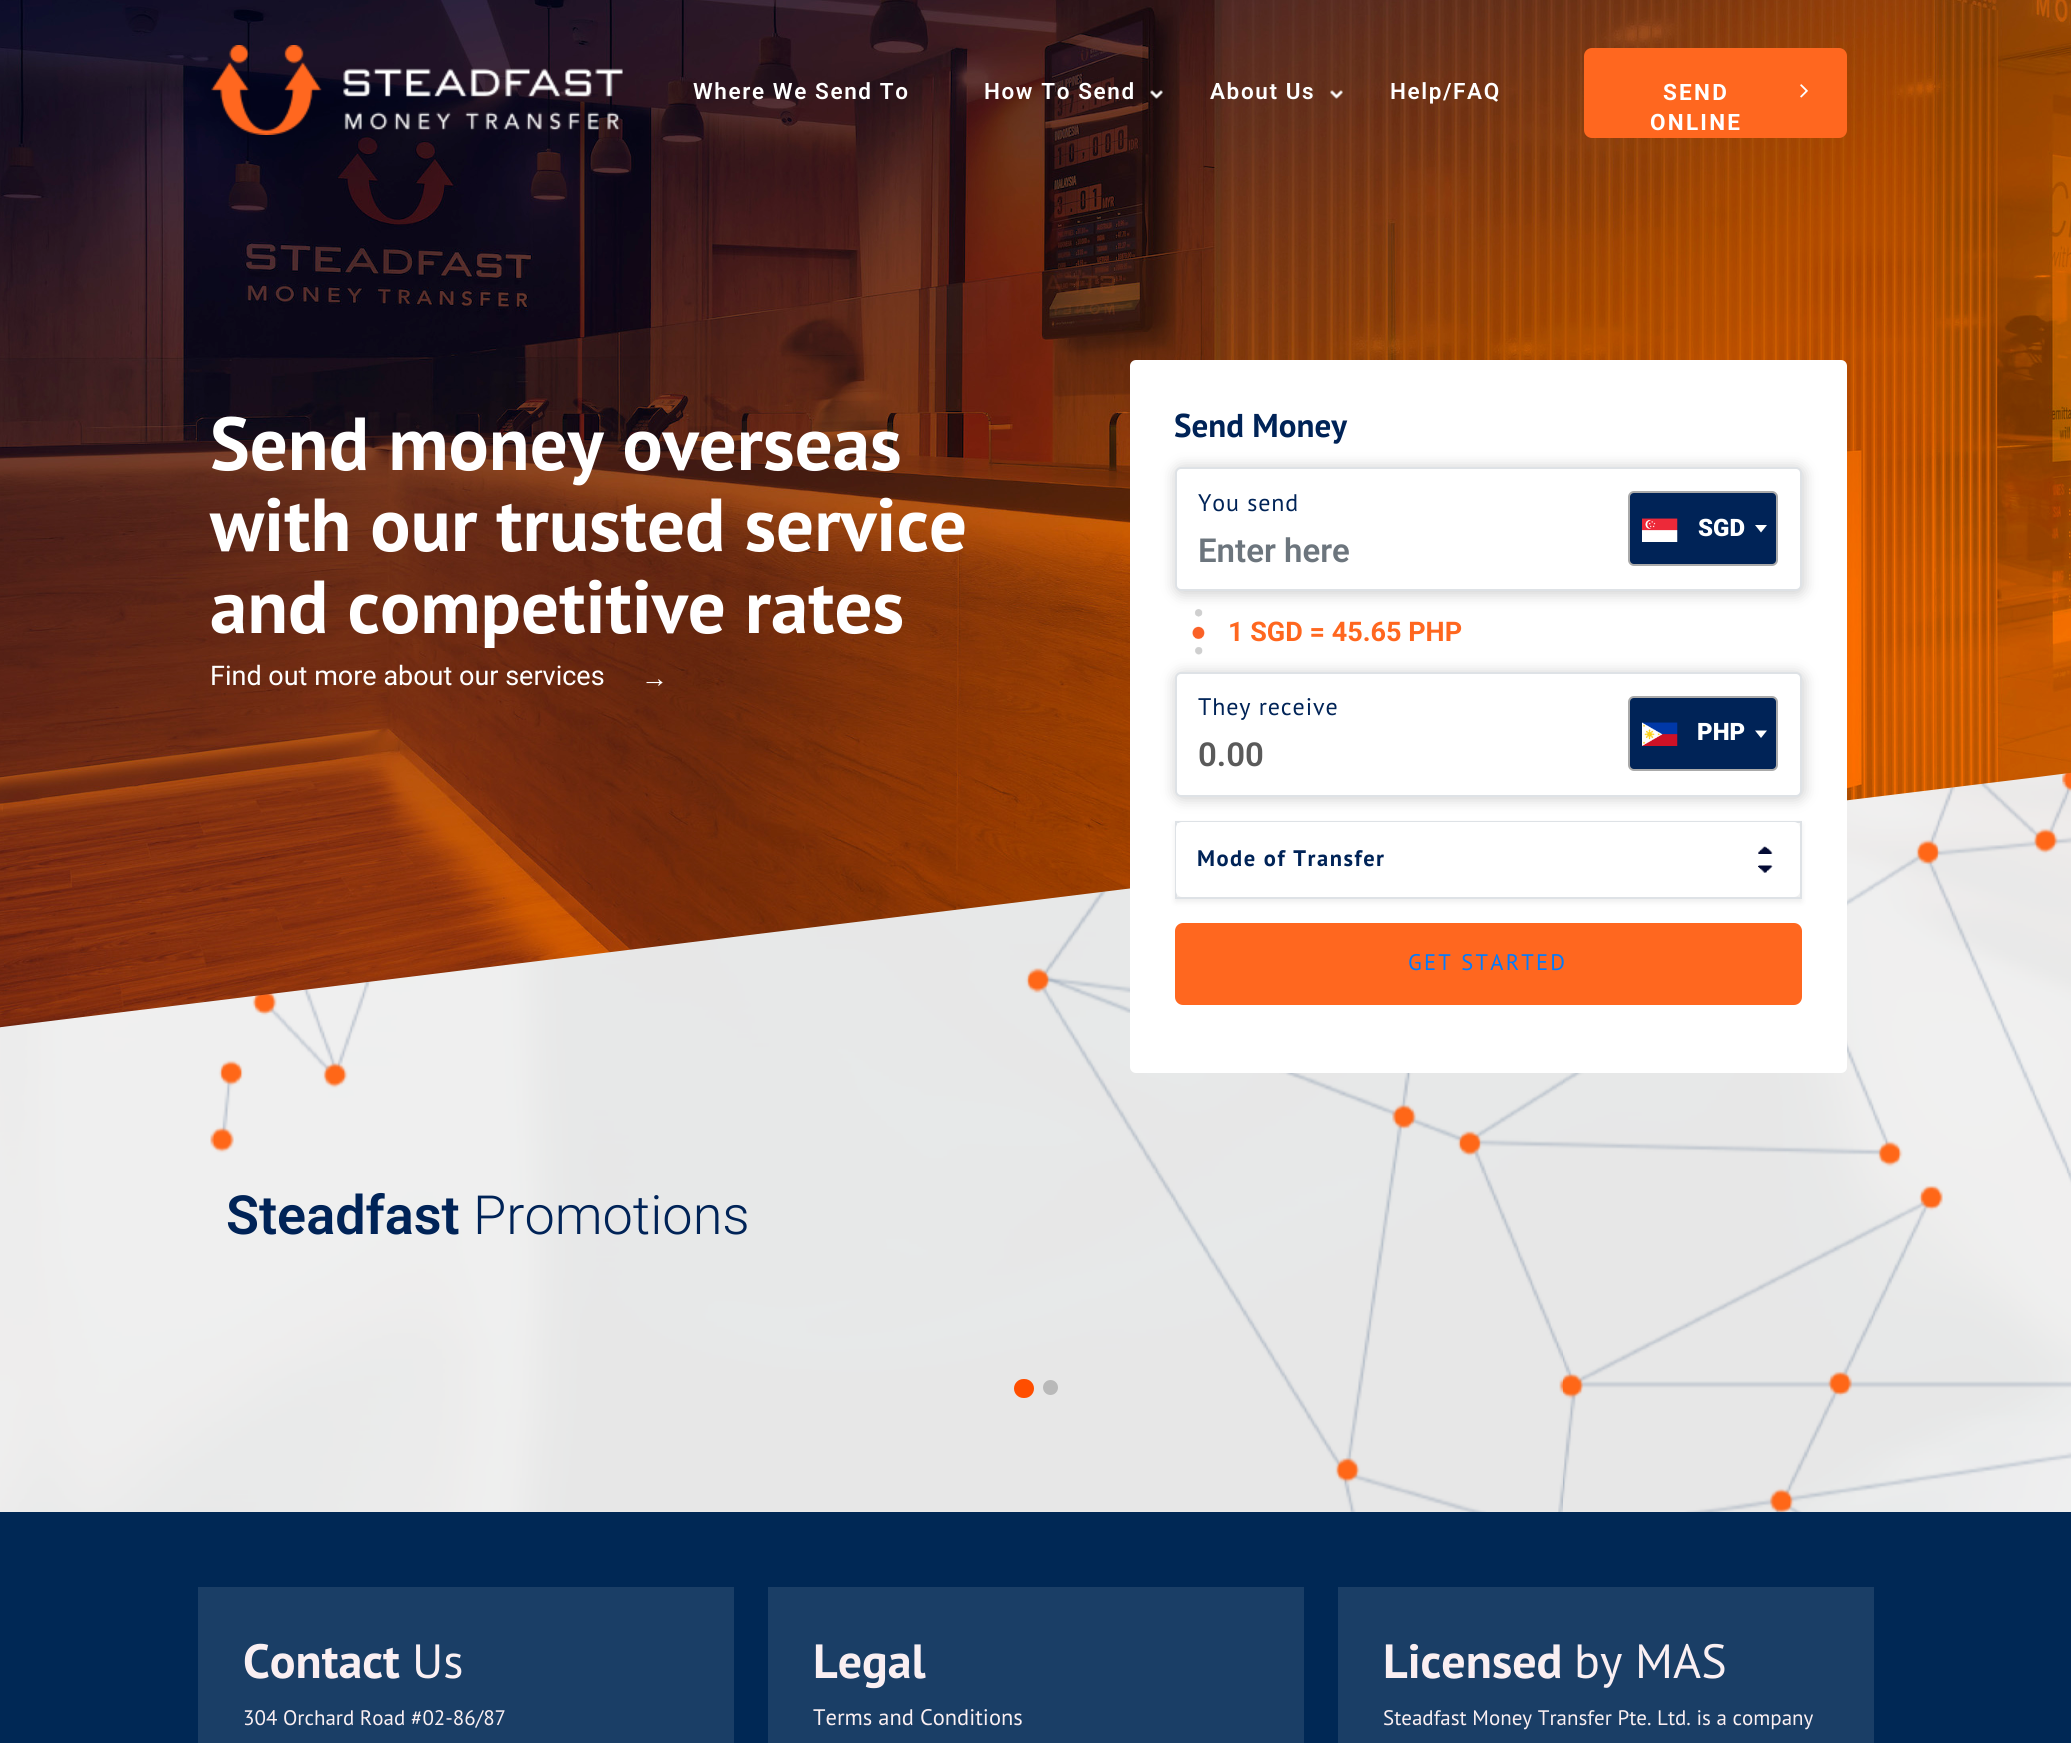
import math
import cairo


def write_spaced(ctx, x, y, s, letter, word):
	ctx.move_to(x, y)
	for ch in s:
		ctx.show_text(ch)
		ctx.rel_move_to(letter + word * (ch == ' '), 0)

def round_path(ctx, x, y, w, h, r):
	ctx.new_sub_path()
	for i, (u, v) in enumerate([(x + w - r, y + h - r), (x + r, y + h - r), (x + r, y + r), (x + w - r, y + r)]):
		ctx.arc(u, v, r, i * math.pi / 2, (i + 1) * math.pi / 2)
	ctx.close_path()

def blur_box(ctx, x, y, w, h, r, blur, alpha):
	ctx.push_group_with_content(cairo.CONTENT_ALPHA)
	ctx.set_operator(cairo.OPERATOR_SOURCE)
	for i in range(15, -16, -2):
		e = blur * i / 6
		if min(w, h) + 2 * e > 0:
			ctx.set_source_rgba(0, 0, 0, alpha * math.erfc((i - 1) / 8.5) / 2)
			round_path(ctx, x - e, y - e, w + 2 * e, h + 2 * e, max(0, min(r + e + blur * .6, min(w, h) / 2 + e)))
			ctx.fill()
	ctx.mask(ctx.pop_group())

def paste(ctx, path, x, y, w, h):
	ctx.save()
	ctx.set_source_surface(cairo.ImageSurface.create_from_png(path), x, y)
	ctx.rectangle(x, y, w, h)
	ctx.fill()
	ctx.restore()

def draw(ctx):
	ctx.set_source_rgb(1, 1, 1)
	ctx.paint()
	paste(ctx, 'media/10.png', 0, 772, 2071, 740)
	paste(ctx, 'media/5.png', 0, 0, 2071, 1028)
	paste(ctx, 'media/1.png', 211, 45, 412, 90)
	ctx.select_font_face('Roboto SemiBold')
	ctx.set_font_size(22.5)
	ctx.set_source_rgb(1, 1, 1)
	write_spaced(ctx, 693, 99, 'Where We Send To', 1.6, 0)
	write_spaced(ctx, 984, 99, 'How To Send', 1.6, 0)
	paste(ctx, 'media/2.png', 1150, 90, 13, 9)
	write_spaced(ctx, 1210, 99, 'About Us', 1.6, 0)
	paste(ctx, 'media/3.png', 1330, 90, 13, 9)
	write_spaced(ctx, 1390, 99, 'Help/FAQ', 1.6, 0)
	ctx.set_source_rgb(1, 0.404, 0.122)
	round_path(ctx, 1584, 48, 263, 90, 8)
	ctx.fill()
	ctx.select_font_face('Roboto', cairo.FONT_SLANT_NORMAL, cairo.FONT_WEIGHT_BOLD)
	ctx.set_source_rgb(1, 1, 1)
	write_spaced(ctx, 1663, 100, 'SEND', 2.25, 0)
	paste(ctx, 'media/4.png', 1800, 84, 8, 14)
	write_spaced(ctx, 1650, 130, 'ONLINE', 2.25, 0)
	ctx.select_font_face('PT Sans', cairo.FONT_SLANT_NORMAL, cairo.FONT_WEIGHT_BOLD)
	ctx.set_font_size(75)
	for x, y, s in [
		(210, 470, 'Send money overseas'),
		(210, 551, 'with our trusted service'),
		(210, 633, 'and competitive rates'),
	]:
		ctx.move_to(x, y)
		ctx.show_text(s)
	ctx.select_font_face('Roboto')
	ctx.set_font_size(27)
	ctx.move_to(210, 685)
	ctx.show_text('Find out more about our services')
	ctx.select_font_face('Liberation Sans')
	ctx.move_to(641, 687)
	ctx.show_text('→')
	round_path(ctx, 1130, 360, 717, 713, 6)
	ctx.fill()
	ctx.select_font_face('PT Sans', cairo.FONT_SLANT_NORMAL, cairo.FONT_WEIGHT_BOLD)
	ctx.set_font_size(33)
	ctx.set_source_rgb(0, 0.137, 0.341)
	ctx.move_to(1174, 437)
	ctx.show_text('Send Money')
	ctx.set_source_rgb(0.278, 0.278, 0.278)
	blur_box(ctx, 1176, 468, 627, 125, 6, 7.5, 0.3)
	ctx.set_source_rgb(1, 1, 1)
	round_path(ctx, 1176, 468, 625, 122, 5)
	ctx.fill_preserve()
	ctx.set_source_rgb(0.871, 0.886, 0.902)
	ctx.stroke()
	ctx.select_font_face('PT Sans')
	ctx.set_font_size(24)
	ctx.set_source_rgb(0, 0.137, 0.341)
	write_spaced(ctx, 1198, 511, 'You send', 0.9, 0)
	ctx.select_font_face('Roboto SemiBold')
	ctx.set_font_size(33)
	ctx.set_source_rgb(0.424, 0.459, 0.49)
	ctx.move_to(1198, 562)
	ctx.show_text('Enter here')
	ctx.set_source_rgb(0, 0.137, 0.341)
	round_path(ctx, 1629, 492, 148, 73, 5)
	ctx.fill_preserve()
	ctx.set_source_rgb(0.667, 0.667, 0.667)
	ctx.stroke()
	paste(ctx, 'media/6.png', 1642, 518, 36, 24)
	ctx.select_font_face('Roboto Black')
	ctx.set_font_size(24)
	ctx.set_source_rgb(1, 1, 1)
	ctx.move_to(1698, 536)
	ctx.show_text('SGD')
	ctx.new_path()
	ctx.move_to(1755, 525)
	ctx.line_to(1767, 525)
	ctx.line_to(1761, 532.5)
	ctx.close_path()
	ctx.fill()
	ctx.set_source_rgb(0.278, 0.278, 0.278)
	blur_box(ctx, 1176, 674, 627, 124, 6, 7.5, 0.3)
	paste(ctx, 'media/7.png', 1192, 609, 13, 46)
	ctx.select_font_face('Roboto', cairo.FONT_SLANT_NORMAL, cairo.FONT_WEIGHT_BOLD)
	ctx.set_font_size(27)
	ctx.set_source_rgb(1, 0.404, 0.122)
	ctx.move_to(1228, 641)
	ctx.show_text('1 SGD = 45.65 PHP')
	ctx.set_source_rgb(1, 1, 1)
	round_path(ctx, 1176, 673, 625, 123, 5)
	ctx.fill_preserve()
	ctx.set_source_rgb(0.871, 0.886, 0.902)
	ctx.stroke()
	ctx.select_font_face('PT Sans')
	ctx.set_font_size(24)
	ctx.set_source_rgb(0, 0.137, 0.341)
	write_spaced(ctx, 1198, 715, 'They receive', 0.9, 0)
	ctx.select_font_face('Roboto SemiBold')
	ctx.set_font_size(33)
	ctx.set_source_rgb(0.353, 0.353, 0.353)
	ctx.move_to(1198, 766)
	ctx.show_text('0.00')
	ctx.set_source_rgb(0, 0.137, 0.341)
	round_path(ctx, 1629, 697, 148, 73, 5)
	ctx.fill_preserve()
	ctx.set_source_rgb(0.667, 0.667, 0.667)
	ctx.stroke()
	paste(ctx, 'media/8.png', 1642, 722, 36, 24)
	ctx.select_font_face('Roboto Black')
	ctx.set_font_size(24)
	ctx.set_source_rgb(1, 1, 1)
	ctx.move_to(1697, 740)
	ctx.show_text('PHP')
	ctx.new_path()
	ctx.move_to(1755, 730.5)
	ctx.line_to(1767, 730.5)
	ctx.line_to(1761, 738)
	ctx.close_path()
	ctx.fill()
	ctx.set_source_rgb(0, 0, 0)
	blur_box(ctx, 1175, 824, 627, 78, 0, 3, 0.07)
	ctx.rectangle(1176, 822, 625, 76)
	ctx.set_source_rgb(0.871, 0.886, 0.902)
	ctx.stroke()
	ctx.set_source_rgb(1, 1, 1)
	round_path(ctx, 1176, 822, 624, 75, 6)
	ctx.fill()
	ctx.select_font_face('PT Sans', cairo.FONT_SLANT_NORMAL, cairo.FONT_WEIGHT_BOLD)
	ctx.set_font_size(22.5)
	ctx.set_source_rgb(0, 0.137, 0.341)
	write_spaced(ctx, 1197, 866, 'Mode of Transfer', 1.5, 0)
	paste(ctx, 'media/9.png', 1758, 846, 15, 27)
	ctx.set_source_rgb(1, 0.404, 0.122)
	round_path(ctx, 1175, 923, 627, 82, 8)
	ctx.fill()
	ctx.select_font_face('PT Sans')
	ctx.set_source_rgb(0, 0.482, 1)
	write_spaced(ctx, 1408, 970, 'GET STARTED', 2.25, 0)
	ctx.select_font_face('Roboto SemiBold')
	ctx.set_font_size(54)
	ctx.set_source_rgb(0, 0.137, 0.341)
	ctx.move_to(226, 1234)
	ctx.show_text('Steadfast')
	ctx.select_font_face('Roboto Light')
	ctx.move_to(473, 1234)
	ctx.show_text('Promotions')
	ctx.set_source_rgb(1, 0.306, 0)
	round_path(ctx, 1014, 1379, 20, 19, 9.5)
	ctx.fill()
	ctx.set_source_rgb(0.725, 0.725, 0.725)
	ctx.arc(1050.5, 1387.5, 7.5, 0, 2 * math.pi)
	ctx.fill()
	ctx.set_source_rgb(0, 0.157, 0.333)
	ctx.rectangle(0, 1512, 2071, 231)
	ctx.fill()
	ctx.set_source_rgb(0.102, 0.243, 0.4)
	ctx.rectangle(198, 1587, 536, 156)
	ctx.fill()
	ctx.select_font_face('PT Sans', cairo.FONT_SLANT_NORMAL, cairo.FONT_WEIGHT_BOLD)
	ctx.set_font_size(48)
	ctx.set_source_rgb(0.98, 0.937, 0.949)
	ctx.move_to(243, 1678)
	ctx.show_text('Contact')
	ctx.select_font_face('PT Sans')
	ctx.move_to(412, 1678)
	ctx.show_text('Us')
	ctx.set_font_size(21)
	ctx.move_to(243, 1725)
	ctx.show_text('304 Orchard Road #02-86/87')
	ctx.set_source_rgb(0.102, 0.243, 0.4)
	ctx.rectangle(768, 1587, 536, 156)
	ctx.fill()
	ctx.select_font_face('PT Sans', cairo.FONT_SLANT_NORMAL, cairo.FONT_WEIGHT_BOLD)
	ctx.set_font_size(48)
	ctx.set_source_rgb(0.98, 0.937, 0.949)
	ctx.move_to(813, 1678)
	ctx.show_text('Legal')
	ctx.select_font_face('PT Sans')
	ctx.set_font_size(22.5)
	ctx.move_to(813, 1725)
	ctx.show_text('Terms and Conditions')
	ctx.set_source_rgb(0.102, 0.243, 0.4)
	ctx.rectangle(1338, 1587, 536, 156)
	ctx.fill()
	ctx.select_font_face('PT Sans', cairo.FONT_SLANT_NORMAL, cairo.FONT_WEIGHT_BOLD)
	ctx.set_font_size(48)
	ctx.set_source_rgb(0.98, 0.937, 0.949)
	ctx.move_to(1383, 1678)
	ctx.show_text('Licensed')
	ctx.select_font_face('PT Sans')
	ctx.move_to(1574, 1678)
	ctx.show_text('by MAS')
	ctx.set_font_size(21)
	ctx.move_to(1383, 1725)
	ctx.show_text('Steadfast Money Transfer Pte. Ltd. is a company')


surface = cairo.ImageSurface(cairo.FORMAT_RGB24, 2071, 1743)
ctx = cairo.Context(surface)
options = cairo.FontOptions()
options.set_hint_metrics(cairo.HINT_METRICS_OFF)
options.set_hint_style(cairo.HINT_STYLE_NONE)
ctx.set_font_options(options)
ctx.set_miter_limit(4)
draw(ctx)
surface.write_to_png('image.png')
